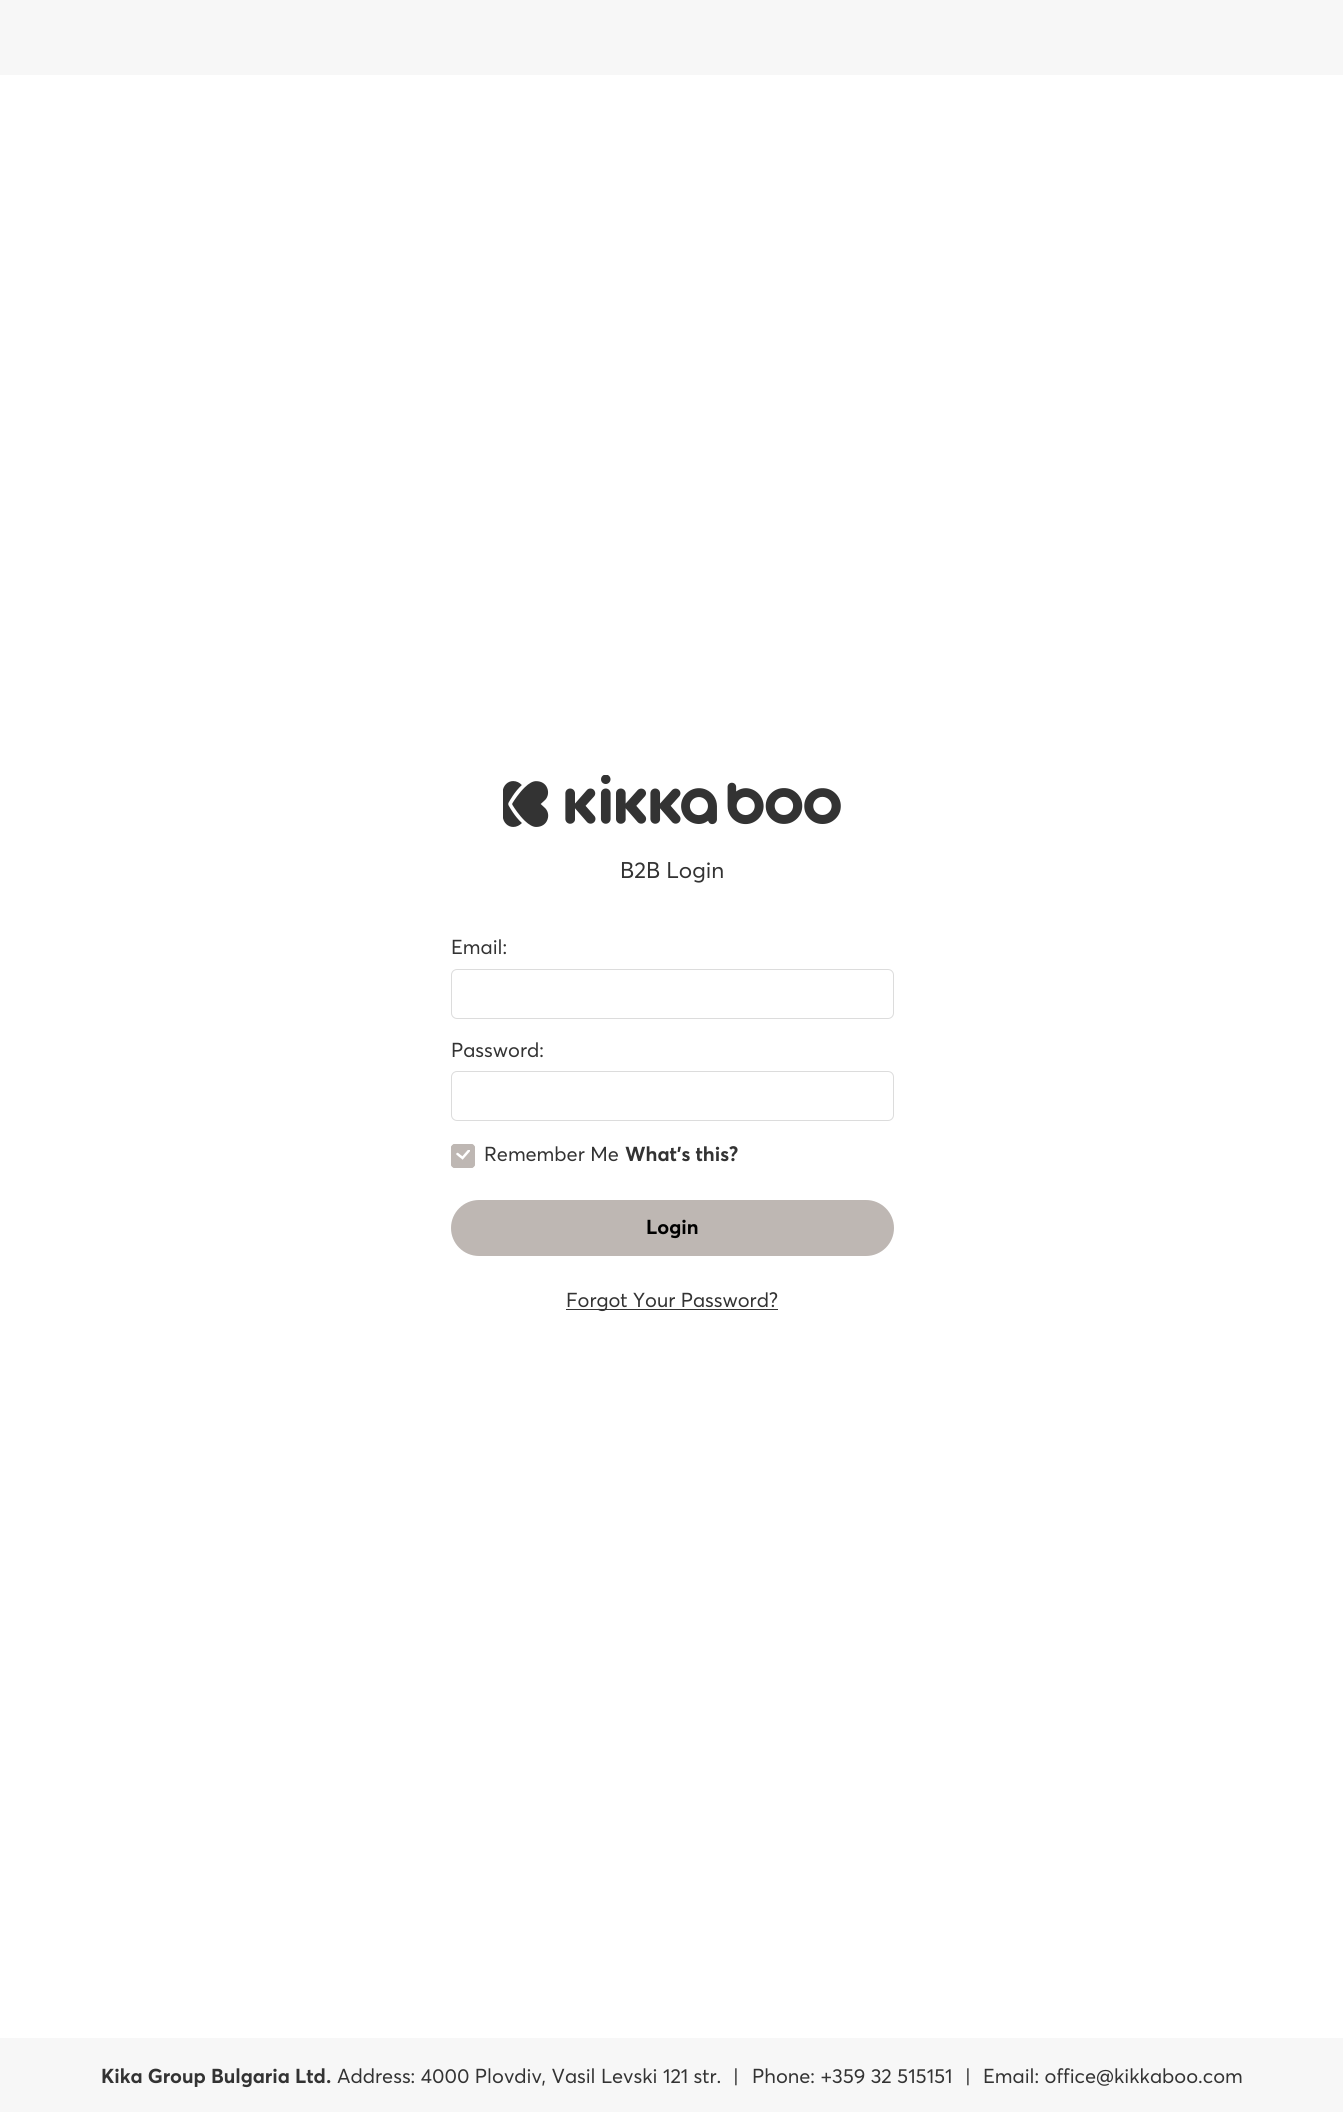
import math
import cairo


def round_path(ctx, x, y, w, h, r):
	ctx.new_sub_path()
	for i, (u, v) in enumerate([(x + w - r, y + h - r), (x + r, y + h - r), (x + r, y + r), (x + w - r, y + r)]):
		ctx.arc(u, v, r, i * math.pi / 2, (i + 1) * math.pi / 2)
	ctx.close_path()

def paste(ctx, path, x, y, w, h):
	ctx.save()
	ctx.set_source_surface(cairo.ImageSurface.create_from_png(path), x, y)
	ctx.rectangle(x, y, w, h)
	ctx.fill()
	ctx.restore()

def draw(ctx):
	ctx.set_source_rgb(1, 1, 1)
	ctx.paint()
	ctx.set_source_rgb(0.965, 0.965, 0.965)
	ctx.rectangle(0, 0, 1343, 75)
	ctx.fill()
	paste(ctx, 'media/1.png', 503, 775, 338, 52)
	ctx.select_font_face('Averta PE')
	ctx.set_font_size(22.5)
	ctx.set_source_rgb(0.2, 0.2, 0.2)
	ctx.move_to(620, 878)
	ctx.show_text('B2B Login')
	ctx.set_font_size(20)
	ctx.move_to(451, 954)
	ctx.show_text('Email:')
	round_path(ctx, 451.5, 969.5, 442, 49, 5.5)
	ctx.set_source_rgb(0.863, 0.863, 0.863)
	ctx.set_line_width(1)
	ctx.stroke()
	ctx.set_source_rgb(0.2, 0.2, 0.2)
	ctx.move_to(451, 1057)
	ctx.show_text('Password:')
	round_path(ctx, 451.5, 1071.5, 442, 49, 5.5)
	ctx.set_source_rgb(0.863, 0.863, 0.863)
	ctx.stroke()
	ctx.set_source_rgb(0.745, 0.718, 0.702)
	round_path(ctx, 451, 1144, 24, 24, 4)
	ctx.fill()
	ctx.save()
	ctx.rectangle(456, 1150, 14, 11)
	ctx.clip()
	ctx.new_path()
	ctx.move_to(457.5, 1154)
	ctx.line_to(462.5, 1158)
	ctx.line_to(469, 1150.5)
	ctx.set_source_rgb(1, 1, 1)
	ctx.set_line_width(2.5)
	ctx.set_line_cap(cairo.LINE_CAP_ROUND)
	ctx.stroke()
	ctx.restore()
	round_path(ctx, 451.5, 1144.5, 23, 23, 3.5)
	ctx.stroke()
	ctx.set_source_rgb(0.2, 0.2, 0.2)
	ctx.move_to(484, 1161)
	ctx.show_text('Remember Me')
	ctx.select_font_face('Averta PE', cairo.FONT_SLANT_NORMAL, cairo.FONT_WEIGHT_BOLD)
	ctx.move_to(625, 1161)
	ctx.show_text('What\'s this?')
	ctx.set_source_rgb(0.745, 0.718, 0.702)
	round_path(ctx, 451, 1200, 443, 56, 28)
	ctx.fill()
	ctx.set_source_rgb(0, 0, 0)
	ctx.move_to(646, 1234)
	ctx.show_text('Login')
	ctx.set_source_rgb(0.2, 0.2, 0.2)
	ctx.rectangle(566, 1309, 212, 1)
	ctx.fill()
	ctx.select_font_face('Averta PE')
	ctx.move_to(566, 1307)
	ctx.show_text('Forgot Your Password?')
	ctx.set_source_rgb(0.965, 0.965, 0.965)
	ctx.rectangle(0, 2038, 1343, 74)
	ctx.fill()
	ctx.select_font_face('Averta PE', cairo.FONT_SLANT_NORMAL, cairo.FONT_WEIGHT_BOLD)
	ctx.set_source_rgb(0.2, 0.2, 0.2)
	ctx.move_to(101, 2083)
	ctx.show_text('Kika Group Bulgaria Ltd.')
	ctx.select_font_face('Averta PE')
	for x, y, s in [
		(337, 2083, 'Address: 4000 Plovdiv, Vasil Levski 121 str.'),
		(733, 2083, '|'),
		(752, 2083, 'Phone: +359 32 515151'),
		(965, 2083, '|'),
		(983, 2083, 'Email: office@kikkaboo.com'),
	]:
		ctx.move_to(x, y)
		ctx.show_text(s)


surface = cairo.ImageSurface(cairo.FORMAT_RGB24, 1343, 2112)
ctx = cairo.Context(surface)
options = cairo.FontOptions()
options.set_hint_metrics(cairo.HINT_METRICS_OFF)
options.set_hint_style(cairo.HINT_STYLE_NONE)
ctx.set_font_options(options)
ctx.set_miter_limit(4)
draw(ctx)
surface.write_to_png('image.png')
